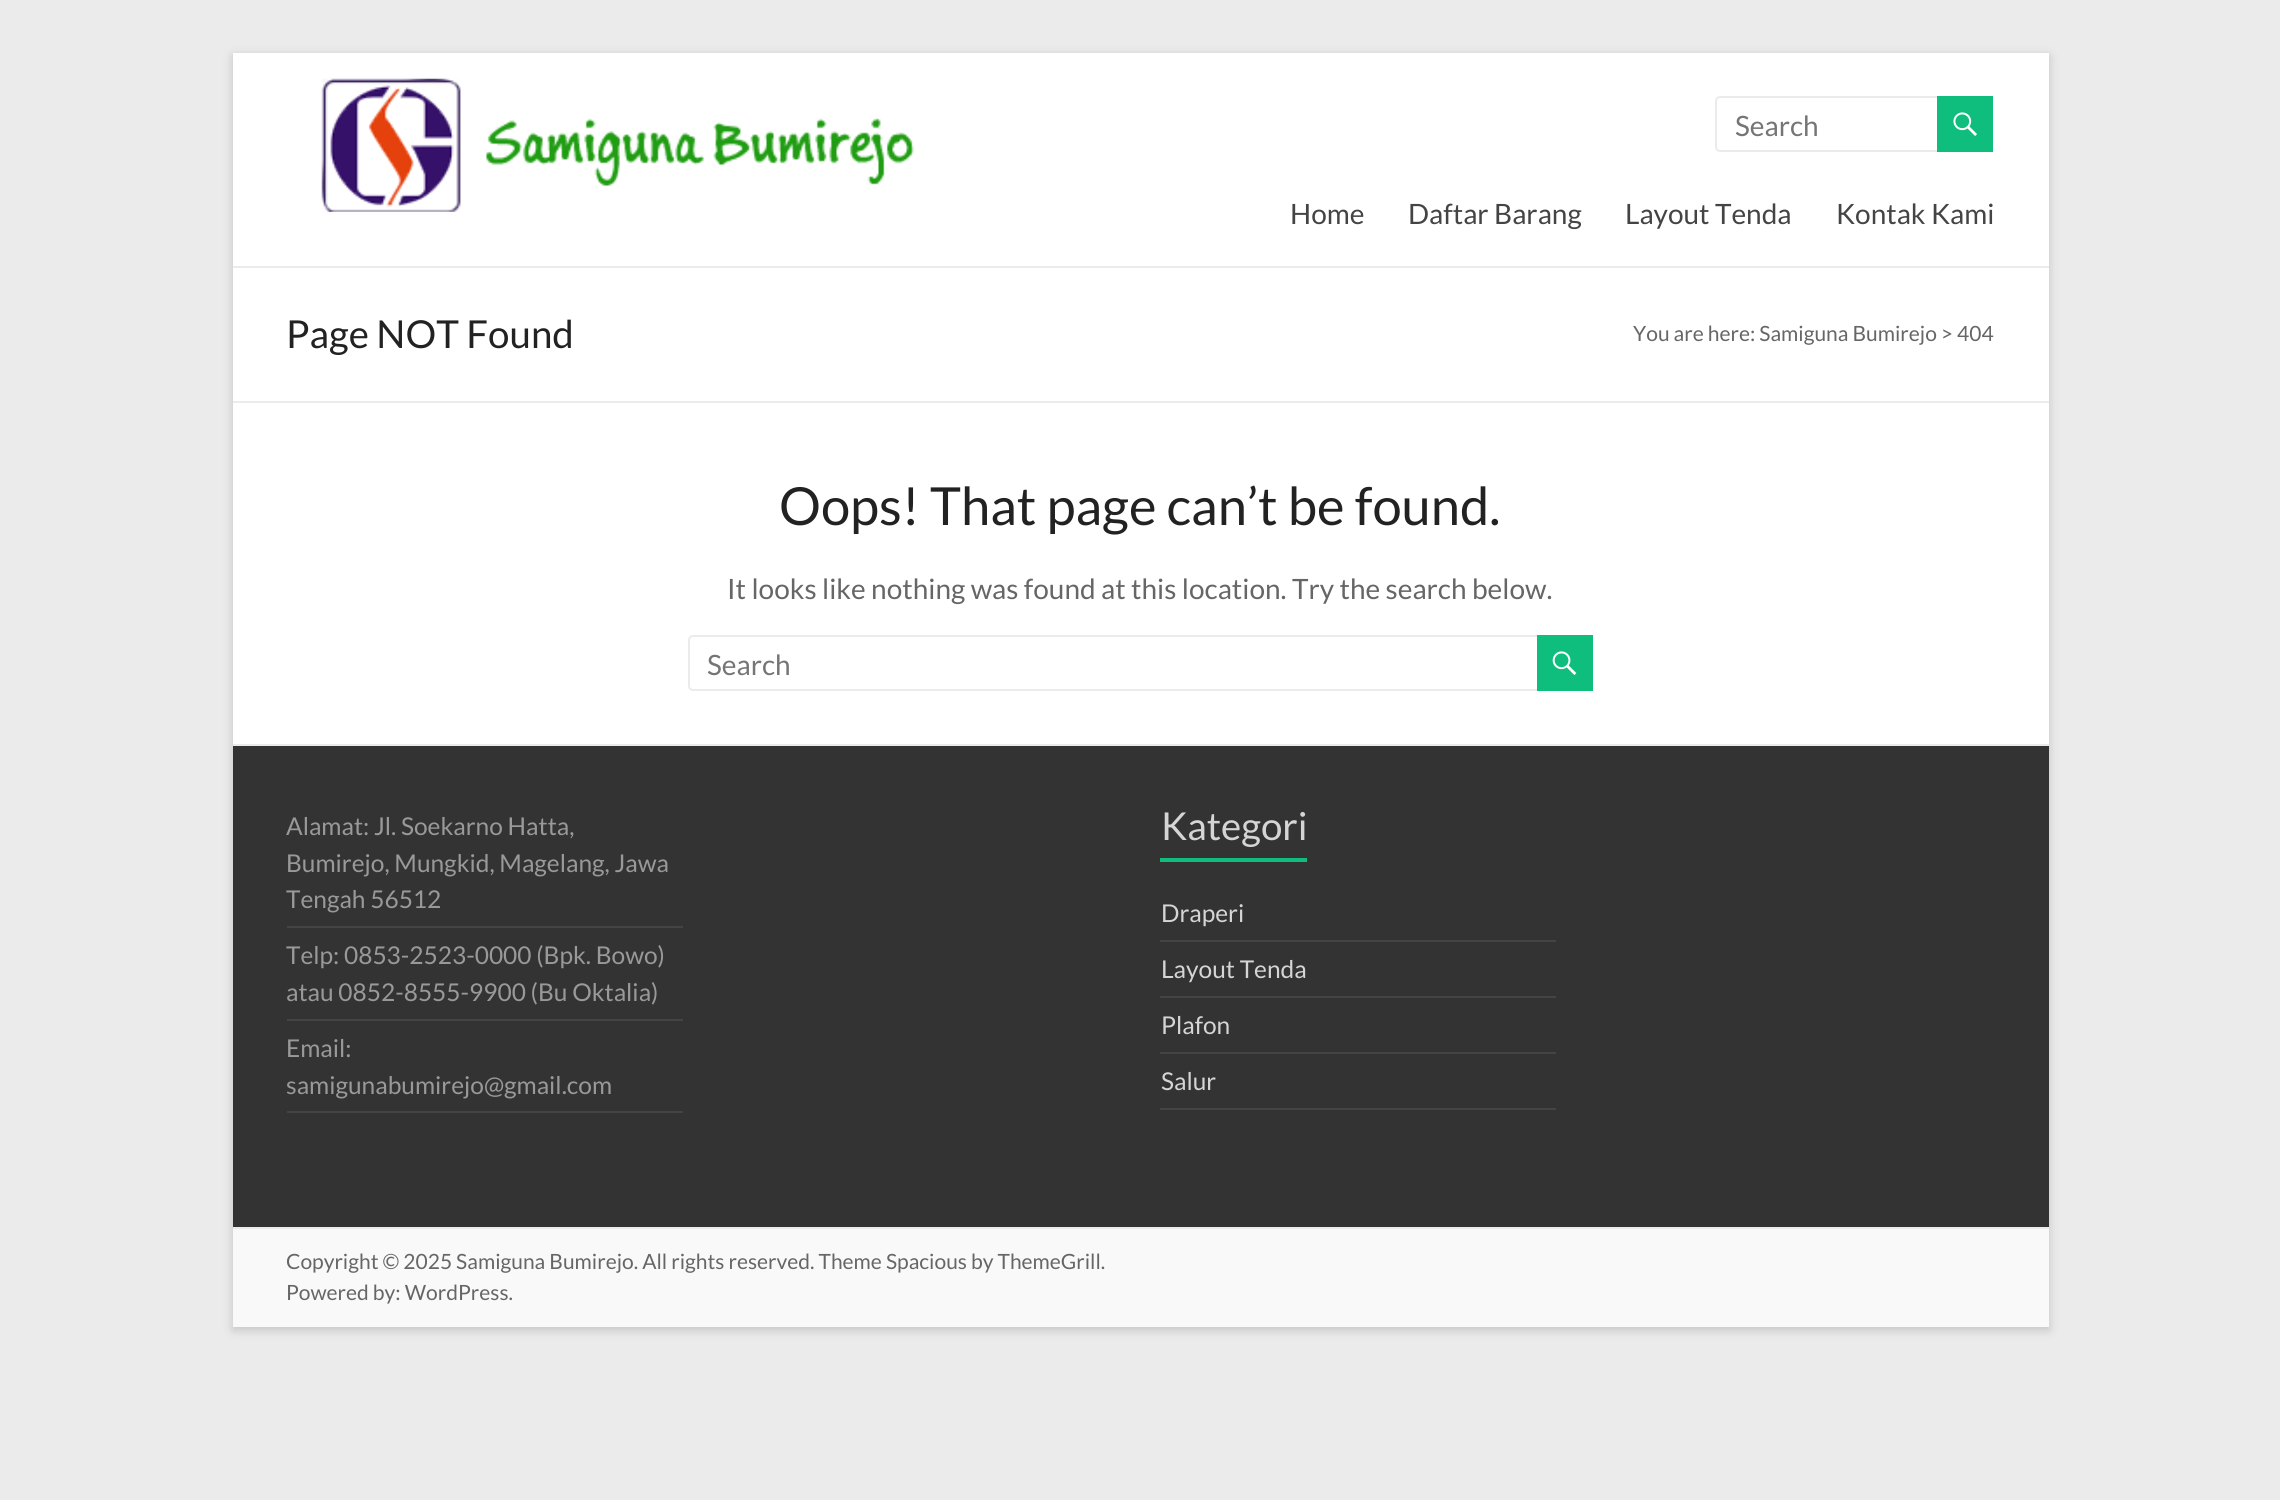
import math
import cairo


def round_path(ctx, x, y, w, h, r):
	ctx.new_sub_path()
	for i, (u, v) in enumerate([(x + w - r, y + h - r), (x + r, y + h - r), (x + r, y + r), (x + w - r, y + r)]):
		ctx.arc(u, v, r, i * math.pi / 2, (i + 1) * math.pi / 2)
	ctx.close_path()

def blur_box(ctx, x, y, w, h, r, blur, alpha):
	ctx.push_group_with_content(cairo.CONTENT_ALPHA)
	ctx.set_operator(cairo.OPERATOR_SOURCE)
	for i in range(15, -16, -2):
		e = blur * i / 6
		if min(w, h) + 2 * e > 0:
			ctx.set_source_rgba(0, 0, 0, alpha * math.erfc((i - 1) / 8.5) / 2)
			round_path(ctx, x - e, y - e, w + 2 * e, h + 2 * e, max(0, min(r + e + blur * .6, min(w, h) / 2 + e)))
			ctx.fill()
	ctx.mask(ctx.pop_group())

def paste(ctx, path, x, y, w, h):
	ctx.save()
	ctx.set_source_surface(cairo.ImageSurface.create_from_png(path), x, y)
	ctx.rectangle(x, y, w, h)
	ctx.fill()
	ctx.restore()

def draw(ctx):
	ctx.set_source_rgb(0.918, 0.918, 0.918)
	ctx.paint()
	ctx.set_source_rgb(0.392, 0.392, 0.392)
	blur_box(ctx, 233, 56, 1816, 1274, 0, 5, 0.3)
	ctx.set_source_rgb(1, 1, 1)
	ctx.rectangle(233, 53, 1816, 691)
	ctx.fill()
	ctx.set_source_rgb(0.918, 0.918, 0.918)
	ctx.rectangle(233, 266, 1816, 2)
	ctx.fill()
	paste(ctx, 'media/1.png', 321, 78, 593, 134)
	round_path(ctx, 1716, 97, 226, 54, 4)
	ctx.stroke()
	ctx.select_font_face('Lato')
	ctx.set_font_size(28)
	ctx.set_source_rgb(0.459, 0.459, 0.459)
	ctx.move_to(1735, 136)
	ctx.show_text('Search')
	ctx.set_source_rgb(0.059, 0.745, 0.486)
	ctx.rectangle(1937, 96, 56, 56)
	ctx.fill()
	paste(ctx, 'media/2.png', 1953, 112, 24, 24)
	ctx.set_source_rgb(0.267, 0.267, 0.267)
	for x, y, s in [
		(1290, 224, 'Home'),
		(1408, 224, 'Daftar Barang'),
		(1625, 224, 'Layout Tenda'),
		(1836, 224, 'Kontak Kami'),
	]:
		ctx.move_to(x, y)
		ctx.show_text(s)
	ctx.set_source_rgb(0.918, 0.918, 0.918)
	ctx.rectangle(233, 401, 1816, 2)
	ctx.fill()
	ctx.set_font_size(38.5)
	ctx.set_source_rgb(0.133, 0.133, 0.133)
	ctx.move_to(286, 348)
	ctx.show_text('Page NOT Found')
	ctx.set_font_size(21)
	ctx.set_source_rgb(0.4, 0.4, 0.4)
	ctx.move_to(1633, 341)
	ctx.show_text('You are here: Samiguna Bumirejo > 404')
	ctx.set_font_size(52.5)
	ctx.set_source_rgb(0.133, 0.133, 0.133)
	ctx.move_to(779, 525)
	ctx.show_text('Oops! That page can’t be found.')
	ctx.set_font_size(28)
	ctx.set_source_rgb(0.4, 0.4, 0.4)
	ctx.move_to(727, 599)
	ctx.show_text('It looks like nothing was found at this location. Try the search below.')
	round_path(ctx, 689, 636, 852, 54, 4)
	ctx.set_source_rgb(0.918, 0.918, 0.918)
	ctx.stroke()
	ctx.set_source_rgb(0.459, 0.459, 0.459)
	ctx.move_to(707, 675)
	ctx.show_text('Search')
	ctx.set_source_rgb(0.059, 0.745, 0.486)
	ctx.rectangle(1537, 635, 56, 56)
	ctx.fill()
	paste(ctx, 'media/3.png', 1552, 651, 25, 24)
	ctx.set_source_rgb(0.2, 0.2, 0.2)
	ctx.rectangle(233, 746, 1816, 481)
	ctx.fill()
	ctx.set_source_rgb(0.918, 0.918, 0.918)
	ctx.rectangle(233, 744, 1816, 2)
	ctx.fill()
	ctx.set_source_rgb(0.267, 0.267, 0.267)
	ctx.rectangle(287, 926, 396, 2)
	ctx.fill()
	ctx.set_font_size(24.5)
	ctx.set_source_rgb(0.6, 0.6, 0.6)
	for x, y, s in [
		(286, 835, 'Alamat: Jl. Soekarno Hatta,'),
		(286, 872, 'Bumirejo, Mungkid, Magelang, Jawa'),
		(286, 908, 'Tengah 56512'),
	]:
		ctx.move_to(x, y)
		ctx.show_text(s)
	ctx.set_source_rgb(0.267, 0.267, 0.267)
	ctx.rectangle(287, 1019, 396, 2)
	ctx.fill()
	ctx.set_source_rgb(0.6, 0.6, 0.6)
	ctx.move_to(286, 964)
	ctx.show_text('Telp: 0853-2523-0000 (Bpk. Bowo)')
	ctx.move_to(286, 1001)
	ctx.show_text('atau 0852-8555-9900 (Bu Oktalia)')
	ctx.set_source_rgb(0.267, 0.267, 0.267)
	ctx.rectangle(287, 1111, 396, 2)
	ctx.fill()
	ctx.set_source_rgb(0.6, 0.6, 0.6)
	ctx.move_to(286, 1057)
	ctx.show_text('Email:')
	ctx.move_to(286, 1094)
	ctx.show_text('samigunabumirejo@gmail.com')
	ctx.set_font_size(38.5)
	ctx.set_source_rgb(0.835, 0.835, 0.835)
	ctx.move_to(1161, 840)
	ctx.show_text('Kategori')
	ctx.set_source_rgb(0.059, 0.745, 0.486)
	ctx.rectangle(1160, 858, 147, 4)
	ctx.fill()
	ctx.set_source_rgb(0.267, 0.267, 0.267)
	ctx.rectangle(1160, 940, 396, 2)
	ctx.fill()
	ctx.set_font_size(24.5)
	ctx.set_source_rgb(0.835, 0.835, 0.835)
	ctx.move_to(1161, 922)
	ctx.show_text('Draperi')
	ctx.set_source_rgb(0.267, 0.267, 0.267)
	ctx.rectangle(1160, 996, 396, 2)
	ctx.fill()
	ctx.set_source_rgb(0.835, 0.835, 0.835)
	ctx.move_to(1161, 978)
	ctx.show_text('Layout Tenda')
	ctx.set_source_rgb(0.267, 0.267, 0.267)
	ctx.rectangle(1160, 1052, 396, 2)
	ctx.fill()
	ctx.set_source_rgb(0.835, 0.835, 0.835)
	ctx.move_to(1161, 1034)
	ctx.show_text('Plafon')
	ctx.set_source_rgb(0.267, 0.267, 0.267)
	ctx.rectangle(1160, 1108, 396, 2)
	ctx.fill()
	ctx.set_source_rgb(0.835, 0.835, 0.835)
	ctx.move_to(1161, 1090)
	ctx.show_text('Salur')
	ctx.set_source_rgb(0.973, 0.973, 0.973)
	ctx.rectangle(233, 1229, 1816, 98)
	ctx.fill()
	ctx.set_source_rgb(0.918, 0.918, 0.918)
	ctx.rectangle(233, 1227, 1816, 2)
	ctx.fill()
	ctx.set_font_size(21)
	ctx.set_source_rgb(0.4, 0.4, 0.4)
	ctx.move_to(286, 1269)
	ctx.show_text('Copyright © 2025 Samiguna Bumirejo. All rights reserved. Theme Spacious by ThemeGrill.')
	ctx.move_to(286, 1300)
	ctx.show_text('Powered by: WordPress.')


surface = cairo.ImageSurface(cairo.FORMAT_RGB24, 2280, 1500)
ctx = cairo.Context(surface)
options = cairo.FontOptions()
options.set_hint_metrics(cairo.HINT_METRICS_OFF)
options.set_hint_style(cairo.HINT_STYLE_NONE)
ctx.set_font_options(options)
ctx.set_miter_limit(4)
draw(ctx)
surface.write_to_png('image.png')
